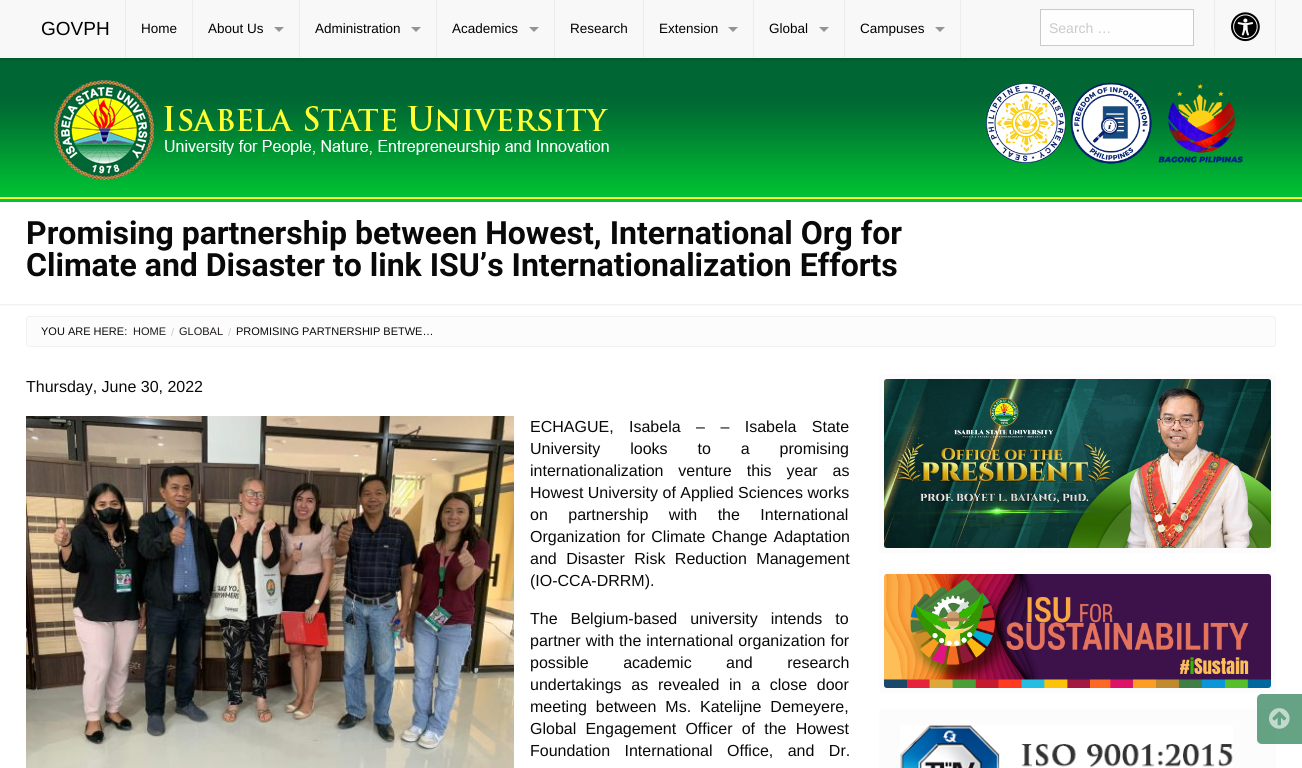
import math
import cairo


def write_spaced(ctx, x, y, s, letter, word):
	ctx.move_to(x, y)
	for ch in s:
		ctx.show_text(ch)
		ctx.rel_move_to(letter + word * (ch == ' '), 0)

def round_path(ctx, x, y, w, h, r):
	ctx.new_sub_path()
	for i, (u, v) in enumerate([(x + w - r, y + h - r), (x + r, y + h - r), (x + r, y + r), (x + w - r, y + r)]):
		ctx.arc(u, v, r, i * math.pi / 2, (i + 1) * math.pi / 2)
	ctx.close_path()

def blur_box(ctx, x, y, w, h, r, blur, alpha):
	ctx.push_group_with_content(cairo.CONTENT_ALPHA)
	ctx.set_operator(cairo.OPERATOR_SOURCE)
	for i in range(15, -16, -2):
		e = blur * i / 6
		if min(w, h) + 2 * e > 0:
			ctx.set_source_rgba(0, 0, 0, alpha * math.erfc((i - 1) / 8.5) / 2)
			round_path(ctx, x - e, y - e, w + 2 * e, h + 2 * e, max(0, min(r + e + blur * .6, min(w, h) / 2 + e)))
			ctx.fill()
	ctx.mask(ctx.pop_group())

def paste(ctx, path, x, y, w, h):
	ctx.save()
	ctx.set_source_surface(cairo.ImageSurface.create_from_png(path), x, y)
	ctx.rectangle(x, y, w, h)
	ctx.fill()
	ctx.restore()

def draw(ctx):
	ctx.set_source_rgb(1, 1, 1)
	ctx.paint()
	paste(ctx, 'media/2.png', 0, 58, 1302, 144)
	ctx.set_source_rgb(0, 0, 0)
	blur_box(ctx, 0, 1, 1302, 58, 0, 2, 0.2)
	ctx.set_source_rgb(0.969, 0.969, 0.969)
	ctx.rectangle(0, 0, 1302, 58)
	ctx.fill()
	ctx.set_source_rgb(0.922, 0.922, 0.922)
	ctx.rectangle(125, 0, 1, 58)
	ctx.fill()
	ctx.select_font_face('Liberation Sans')
	ctx.set_font_size(19)
	ctx.set_source_rgb(0, 0, 0)
	ctx.move_to(41, 35)
	ctx.show_text('GOVPH')
	ctx.set_source_rgb(0.922, 0.922, 0.922)
	ctx.rectangle(192, 0, 1, 58)
	ctx.fill()
	ctx.set_font_size(13.5)
	ctx.set_source_rgb(0, 0, 0)
	ctx.move_to(141, 33)
	ctx.show_text('Home')
	ctx.set_source_rgb(0.922, 0.922, 0.922)
	ctx.rectangle(299, 0, 1, 58)
	ctx.fill()
	ctx.set_source_rgb(0, 0, 0)
	ctx.move_to(208, 33)
	ctx.show_text('About Us')
	ctx.set_source_rgb(0.58, 0.58, 0.58)
	ctx.new_path()
	ctx.move_to(274, 27)
	ctx.line_to(284, 27)
	ctx.line_to(279, 32)
	ctx.close_path()
	ctx.fill()
	ctx.set_source_rgb(0.922, 0.922, 0.922)
	ctx.rectangle(436, 0, 1, 58)
	ctx.fill()
	ctx.set_source_rgb(0, 0, 0)
	ctx.move_to(315, 33)
	ctx.show_text('Administration')
	ctx.set_source_rgb(0.58, 0.58, 0.58)
	ctx.new_path()
	ctx.move_to(411, 27)
	ctx.line_to(421, 27)
	ctx.line_to(416, 32)
	ctx.close_path()
	ctx.fill()
	ctx.set_source_rgb(0.922, 0.922, 0.922)
	ctx.rectangle(554, 0, 1, 58)
	ctx.fill()
	ctx.set_source_rgb(0, 0, 0)
	ctx.move_to(452, 33)
	ctx.show_text('Academics')
	ctx.set_source_rgb(0.58, 0.58, 0.58)
	ctx.new_path()
	ctx.move_to(529, 27)
	ctx.line_to(539, 27)
	ctx.line_to(534, 32)
	ctx.close_path()
	ctx.fill()
	ctx.set_source_rgb(0.922, 0.922, 0.922)
	ctx.rectangle(643, 0, 1, 58)
	ctx.fill()
	ctx.set_source_rgb(0, 0, 0)
	ctx.move_to(570, 33)
	ctx.show_text('Research')
	ctx.set_source_rgb(0.922, 0.922, 0.922)
	ctx.rectangle(753, 0, 1, 58)
	ctx.fill()
	ctx.set_source_rgb(0, 0, 0)
	ctx.move_to(659, 33)
	ctx.show_text('Extension')
	ctx.set_source_rgb(0.58, 0.58, 0.58)
	ctx.new_path()
	ctx.move_to(728, 27)
	ctx.line_to(738, 27)
	ctx.line_to(733, 32)
	ctx.close_path()
	ctx.fill()
	ctx.set_source_rgb(0.922, 0.922, 0.922)
	ctx.rectangle(844, 0, 1, 58)
	ctx.fill()
	ctx.set_source_rgb(0, 0, 0)
	ctx.move_to(769, 33)
	ctx.show_text('Global')
	ctx.set_source_rgb(0.58, 0.58, 0.58)
	ctx.new_path()
	ctx.move_to(819, 27)
	ctx.line_to(829, 27)
	ctx.line_to(824, 32)
	ctx.close_path()
	ctx.fill()
	ctx.set_source_rgb(0.922, 0.922, 0.922)
	ctx.rectangle(960, 0, 1, 58)
	ctx.fill()
	ctx.set_source_rgb(0, 0, 0)
	ctx.move_to(860, 33)
	ctx.show_text('Campuses')
	ctx.set_source_rgb(0.58, 0.58, 0.58)
	ctx.new_path()
	ctx.move_to(935, 27)
	ctx.line_to(945, 27)
	ctx.line_to(940, 32)
	ctx.close_path()
	ctx.fill()
	ctx.set_source_rgb(0.922, 0.922, 0.922)
	ctx.rectangle(1214, 0, 1, 55)
	ctx.fill()
	ctx.set_source_rgb(0.996, 0.996, 0.996)
	ctx.rectangle(1040.5, 9.5, 153, 36)
	ctx.fill_preserve()
	ctx.set_source_rgb(0.792, 0.792, 0.792)
	ctx.set_line_width(1)
	ctx.stroke()
	ctx.set_font_size(14)
	ctx.move_to(1049, 33)
	ctx.show_text('Search …')
	ctx.set_source_rgb(0.922, 0.922, 0.922)
	ctx.rectangle(1275, 0, 1, 55)
	ctx.fill()
	paste(ctx, 'media/1.png', 1231, 12, 29, 30)
	paste(ctx, 'media/3.png', 54, 80, 555, 100)
	paste(ctx, 'media/4.png', 986, 83, 80, 80)
	paste(ctx, 'media/5.png', 1070, 82, 82, 82)
	paste(ctx, 'media/6.png', 1158, 84, 85, 79)
	ctx.set_source_rgb(0.949, 0.949, 0.949)
	ctx.rectangle(0, 304, 1302, 1)
	ctx.fill()
	ctx.select_font_face('Roboto', cairo.FONT_SLANT_NORMAL, cairo.FONT_WEIGHT_BOLD)
	ctx.set_font_size(32)
	ctx.set_source_rgb(0.039, 0.039, 0.039)
	ctx.move_to(26, 244)
	ctx.show_text('Promising partnership between Howest, International Org for')
	ctx.move_to(26, 276)
	ctx.show_text('Climate and Disaster to link ISU’s Internationalization Efforts')
	ctx.set_source_rgb(0.969, 0.969, 0.969)
	ctx.rectangle(0, 305, 1302, 1)
	ctx.fill()
	ctx.set_source_rgb(0.988, 0.988, 0.988)
	round_path(ctx, 26.5, 316.5, 1249, 30, 2.5)
	ctx.fill_preserve()
	ctx.set_source_rgb(0.949, 0.949, 0.949)
	ctx.stroke()
	ctx.select_font_face('Liberation Sans')
	ctx.set_font_size(11)
	ctx.set_source_rgb(0.039, 0.039, 0.039)
	ctx.move_to(41, 335)
	ctx.show_text('YOU ARE HERE:')
	ctx.set_source_rgb(0.118, 0.098, 0.102)
	ctx.move_to(133, 335)
	ctx.show_text('HOME')
	ctx.set_source_rgb(0.792, 0.792, 0.792)
	ctx.move_to(171, 336)
	ctx.show_text('/')
	ctx.set_source_rgb(0.118, 0.098, 0.102)
	ctx.move_to(179, 335)
	ctx.show_text('GLOBAL')
	ctx.set_source_rgb(0.792, 0.792, 0.792)
	ctx.move_to(228, 336)
	ctx.show_text('/')
	ctx.set_source_rgb(0.039, 0.039, 0.039)
	ctx.move_to(236, 335)
	ctx.show_text('PROMISING PARTNERSHIP BETWE…')
	ctx.set_font_size(16)
	ctx.move_to(26, 392)
	ctx.show_text('Thursday, June 30, 2022')
	paste(ctx, 'media/7.png', 26, 416, 488, 352)
	write_spaced(ctx, 530, 432, 'ECHAGUE, Isabela – – Isabela State', 0, 11)
	write_spaced(ctx, 530, 454, 'University looks to a promising', 0, 25.5)
	write_spaced(ctx, 530, 476, 'internationalization venture this year as', 0, 10.5)
	ctx.move_to(530, 498)
	ctx.show_text('Howest University of Applied Sciences works')
	write_spaced(ctx, 530, 520, 'on partnership with the International', 0, 16)
	write_spaced(ctx, 530, 542, 'Organization for Climate Change Adaptation', 0, 1.5)
	write_spaced(ctx, 530, 564, 'and Disaster Risk Reduction Management', 0, 5)
	ctx.move_to(530, 586)
	ctx.show_text('(IO-CCA-DRRM).')
	write_spaced(ctx, 530, 624, 'The Belgium-based university intends to', 0, 8.5)
	write_spaced(ctx, 530, 646, 'partner with the international organization for', 0, 0.5)
	write_spaced(ctx, 530, 668, 'possible academic and research', 0, 30)
	write_spaced(ctx, 530, 690, 'undertakings as revealed in a close door', 0, 5.25)
	write_spaced(ctx, 530, 712, 'meeting between Ms. Katelijne Demeyere,', 0, 4.5)
	write_spaced(ctx, 530, 734, 'Global Engagement Officer of the Howest', 0, 4.75)
	write_spaced(ctx, 530, 756, 'Foundation International Office, and Dr.', 0, 10)
	ctx.set_source_rgb(0.988, 0.988, 0.988)
	round_path(ctx, 879, 374, 397, 179, 4)
	ctx.fill()
	paste(ctx, 'media/8.png', 884, 379, 387, 169)
	round_path(ctx, 879, 569, 397, 124, 4)
	ctx.fill()
	paste(ctx, 'media/9.png', 884, 574, 387, 114)
	round_path(ctx, 879, 709, 397, 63, 4)
	ctx.fill()
	paste(ctx, 'media/10.png', 900, 725, 333, 43)
	ctx.set_source_rgba(0, 0.4, 0.2, 0.6)
	ctx.new_path()
	ctx.move_to(1262, 694)
	ctx.line_to(1302, 694)
	ctx.line_to(1302, 744)
	ctx.line_to(1262, 744)
	ctx.curve_to(1259, 744, 1257, 742, 1257, 739)
	ctx.line_to(1257, 699)
	ctx.curve_to(1257, 696, 1259, 694, 1262, 694)
	ctx.close_path()
	ctx.fill()
	paste(ctx, 'media/11.png', 1269, 708, 21, 21)


surface = cairo.ImageSurface(cairo.FORMAT_RGB24, 1302, 768)
ctx = cairo.Context(surface)
options = cairo.FontOptions()
options.set_hint_metrics(cairo.HINT_METRICS_OFF)
options.set_hint_style(cairo.HINT_STYLE_NONE)
ctx.set_font_options(options)
ctx.set_miter_limit(4)
draw(ctx)
surface.write_to_png('image.png')
